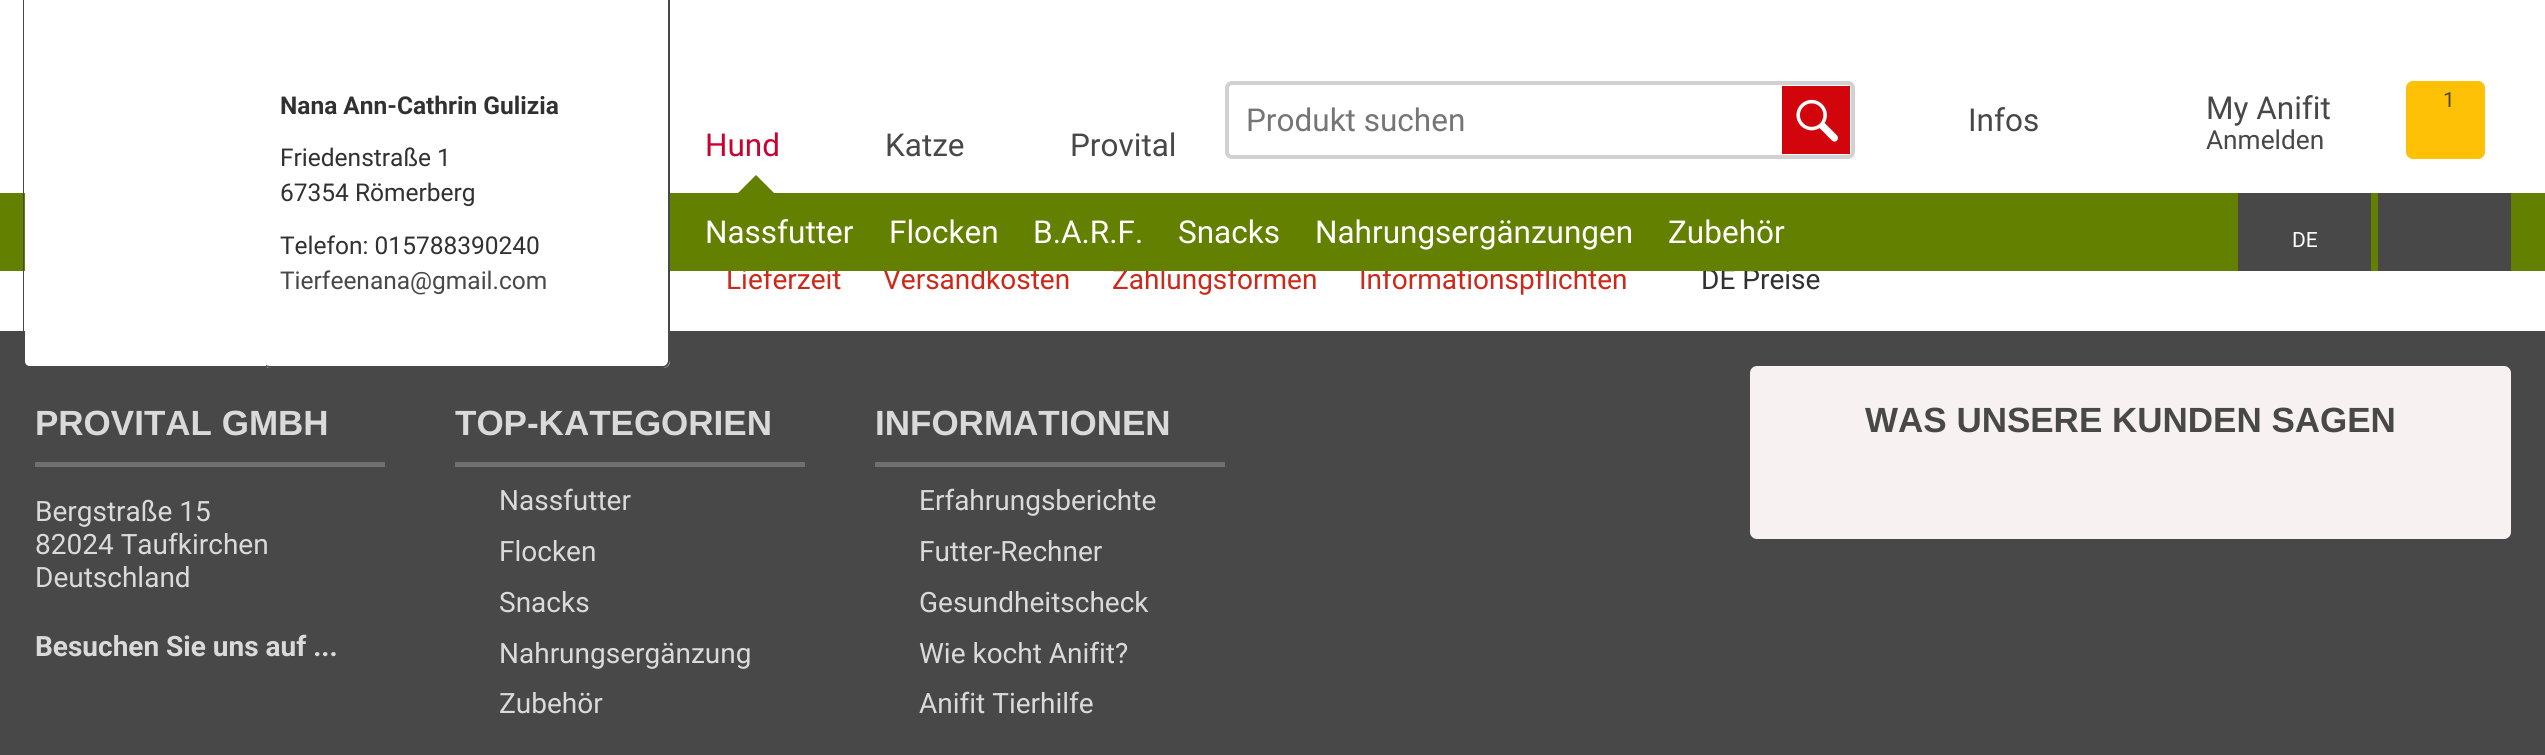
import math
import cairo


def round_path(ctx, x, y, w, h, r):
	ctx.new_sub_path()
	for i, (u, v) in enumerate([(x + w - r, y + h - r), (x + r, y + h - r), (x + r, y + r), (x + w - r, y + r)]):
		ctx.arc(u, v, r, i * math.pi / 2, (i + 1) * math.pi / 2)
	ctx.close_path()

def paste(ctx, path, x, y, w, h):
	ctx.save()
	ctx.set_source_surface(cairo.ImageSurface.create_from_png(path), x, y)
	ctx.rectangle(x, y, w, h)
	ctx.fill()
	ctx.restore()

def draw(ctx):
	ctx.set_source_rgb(1, 1, 1)
	ctx.paint()
	ctx.select_font_face('Roboto')
	ctx.set_font_size(28)
	ctx.set_source_rgb(0.808, 0.157, 0.098)
	for x, y, s in [
		(726, 289, 'Lieferzeit'),
		(883, 289, 'Versandkosten'),
		(1112, 289, 'Zahlungsformen'),
		(1359, 289, 'Informationspflichten'),
	]:
		ctx.move_to(x, y)
		ctx.show_text(s)
	ctx.set_source_rgb(0.192, 0.192, 0.192)
	ctx.move_to(1701, 289)
	ctx.show_text('DE Preise')
	ctx.set_source_rgb(0.388, 0.502, 0)
	ctx.rectangle(0, 193, 2545, 78)
	ctx.fill()
	ctx.set_source_rgb(0.282, 0.282, 0.282)
	ctx.rectangle(0, 331, 2545, 424)
	ctx.fill()
	ctx.set_source_rgb(1, 1, 1)
	ctx.new_path()
	ctx.move_to(263, 0)
	ctx.line_to(670, 0)
	ctx.line_to(670, 361)
	ctx.curve_to(670, 365, 667, 368, 663, 368)
	ctx.line_to(270, 368)
	ctx.curve_to(266, 368, 263, 365, 263, 361)
	ctx.close_path()
	ctx.fill()
	ctx.set_source_rgb(0.282, 0.282, 0.282)
	ctx.set_fill_rule(cairo.FILL_RULE_EVEN_ODD)
	ctx.new_path()
	ctx.move_to(262, 0)
	ctx.line_to(670, 0)
	ctx.line_to(670, 360)
	ctx.curve_to(670, 364, 667, 368, 663, 368)
	ctx.line_to(270, 368)
	ctx.curve_to(266, 368, 262, 364, 262, 360)
	ctx.close_path()
	ctx.move_to(262, 0)
	ctx.line_to(668, 0)
	ctx.line_to(668, 360)
	ctx.curve_to(668, 363, 666, 366, 663, 366)
	ctx.line_to(270, 366)
	ctx.curve_to(266, 366, 262, 363, 262, 360)
	ctx.close_path()
	ctx.fill()
	ctx.new_path()
	ctx.move_to(23, 0)
	ctx.line_to(266, 0)
	ctx.line_to(266, 368)
	ctx.line_to(30, 368)
	ctx.curve_to(26, 368, 23, 364, 23, 360)
	ctx.close_path()
	ctx.move_to(24, 0)
	ctx.line_to(266, 0)
	ctx.line_to(266, 366)
	ctx.line_to(30, 366)
	ctx.curve_to(27, 366, 24, 363, 24, 360)
	ctx.close_path()
	ctx.fill()
	ctx.set_source_rgb(1, 1, 1)
	ctx.new_path()
	ctx.move_to(25, 0)
	ctx.line_to(266, 0)
	ctx.line_to(266, 366)
	ctx.line_to(30, 366)
	ctx.curve_to(27, 366, 25, 364, 25, 361)
	ctx.close_path()
	ctx.fill()
	ctx.select_font_face('Roboto', cairo.FONT_SLANT_NORMAL, cairo.FONT_WEIGHT_BOLD)
	ctx.set_font_size(24.5)
	ctx.set_source_rgb(0.192, 0.192, 0.192)
	ctx.move_to(280, 114)
	ctx.show_text('Nana Ann-Cathrin Gulizia')
	ctx.select_font_face('Roboto')
	for x, y, s in [
		(280, 166, 'Friedenstraße 1'),
		(280, 201, '67354 Römerberg'),
		(280, 254, 'Telefon: 015788390240'),
	]:
		ctx.move_to(x, y)
		ctx.show_text(s)
	ctx.set_source_rgb(0.282, 0.282, 0.282)
	ctx.move_to(280, 289)
	ctx.show_text('Tierfeenana@gmail.com')
	ctx.set_font_size(31.5)
	ctx.move_to(1968, 131)
	ctx.show_text('Infos')
	ctx.move_to(2206, 119)
	ctx.show_text('My Anifit')
	ctx.set_font_size(26.25)
	ctx.move_to(2206, 149)
	ctx.show_text('Anmelden')
	ctx.set_source_rgb(1, 0.757, 0.027)
	round_path(ctx, 2406, 81, 79, 78, 7)
	ctx.fill()
	ctx.set_font_size(21)
	ctx.set_source_rgb(0.282, 0.282, 0.282)
	ctx.move_to(2443, 107)
	ctx.show_text('1')
	ctx.set_font_size(31.5)
	ctx.set_source_rgb(0.788, 0.008, 0.188)
	ctx.move_to(705, 156)
	ctx.show_text('Hund')
	ctx.set_source_rgb(0.388, 0.502, 0)
	ctx.set_fill_rule(cairo.FILL_RULE_WINDING)
	ctx.new_path()
	ctx.move_to(777, 196)
	ctx.line_to(735, 196)
	ctx.line_to(756, 175)
	ctx.close_path()
	ctx.fill()
	ctx.set_source_rgb(1, 1, 1)
	for x, y, s in [
		(705, 243, 'Nassfutter'),
		(889, 243, 'Flocken'),
		(1033, 243, 'B.A.R.F.'),
		(1178, 243, 'Snacks'),
		(1315, 243, 'Nahrungsergänzungen'),
		(1668, 243, 'Zubehör'),
	]:
		ctx.move_to(x, y)
		ctx.show_text(s)
	ctx.set_source_rgb(0.282, 0.282, 0.282)
	ctx.move_to(885, 156)
	ctx.show_text('Katze')
	ctx.move_to(1070, 156)
	ctx.show_text('Provital')
	round_path(ctx, 1227, 83, 626, 74, 5)
	ctx.set_source_rgb(0.82, 0.82, 0.82)
	ctx.set_line_width(4)
	ctx.stroke()
	ctx.set_source_rgb(0.459, 0.459, 0.459)
	ctx.move_to(1246, 131)
	ctx.show_text('Produkt suchen')
	ctx.set_source_rgb(0.827, 0.02, 0.047)
	ctx.rectangle(1782, 86, 68, 68)
	ctx.fill()
	paste(ctx, 'media/1.png', 1796, 99, 42, 43)
	ctx.set_source_rgb(0.282, 0.282, 0.282)
	ctx.rectangle(2238, 193, 133, 78)
	ctx.fill()
	ctx.set_font_size(21)
	ctx.set_source_rgb(1, 1, 1)
	ctx.move_to(2292, 247)
	ctx.show_text('DE')
	ctx.set_source_rgb(0.282, 0.282, 0.282)
	ctx.rectangle(2378, 193, 133, 78)
	ctx.fill()
	ctx.set_source_rgb(0.439, 0.439, 0.439)
	ctx.rectangle(35, 462, 350, 5)
	ctx.fill()
	ctx.select_font_face('Liberation Sans', cairo.FONT_SLANT_NORMAL, cairo.FONT_WEIGHT_BOLD)
	ctx.set_font_size(35)
	ctx.set_source_rgb(0.855, 0.855, 0.855)
	ctx.move_to(35, 435)
	ctx.show_text('PROVITAL GMBH')
	ctx.select_font_face('Roboto')
	ctx.set_font_size(28)
	for x, y, s in [
		(35, 521, 'Bergstraße 15'),
		(35, 554, '82024 Taufkirchen'),
		(35, 587, 'Deutschland'),
	]:
		ctx.move_to(x, y)
		ctx.show_text(s)
	ctx.select_font_face('Roboto', cairo.FONT_SLANT_NORMAL, cairo.FONT_WEIGHT_BOLD)
	ctx.move_to(35, 656)
	ctx.show_text('Besuchen Sie uns auf ...')
	ctx.set_source_rgb(0.439, 0.439, 0.439)
	ctx.rectangle(455, 462, 350, 5)
	ctx.fill()
	ctx.select_font_face('Liberation Sans', cairo.FONT_SLANT_NORMAL, cairo.FONT_WEIGHT_BOLD)
	ctx.set_font_size(35)
	ctx.set_source_rgb(0.855, 0.855, 0.855)
	ctx.move_to(455, 435)
	ctx.show_text('TOP-KATEGORIEN')
	ctx.select_font_face('Roboto')
	ctx.set_font_size(28)
	for x, y, s in [
		(499, 510, 'Nassfutter'),
		(499, 561, 'Flocken'),
		(499, 612, 'Snacks'),
		(499, 663, 'Nahrungsergänzung'),
		(499, 713, 'Zubehör'),
	]:
		ctx.move_to(x, y)
		ctx.show_text(s)
	ctx.set_source_rgb(0.439, 0.439, 0.439)
	ctx.rectangle(875, 462, 350, 5)
	ctx.fill()
	ctx.select_font_face('Liberation Sans', cairo.FONT_SLANT_NORMAL, cairo.FONT_WEIGHT_BOLD)
	ctx.set_font_size(35)
	ctx.set_source_rgb(0.855, 0.855, 0.855)
	ctx.move_to(875, 435)
	ctx.show_text('INFORMATIONEN')
	ctx.select_font_face('Roboto')
	ctx.set_font_size(28)
	for x, y, s in [
		(919, 510, 'Erfahrungsberichte'),
		(919, 561, 'Futter-Rechner'),
		(919, 612, 'Gesundheitscheck'),
		(919, 663, 'Wie kocht Anifit?'),
		(919, 713, 'Anifit Tierhilfe'),
	]:
		ctx.move_to(x, y)
		ctx.show_text(s)
	ctx.set_source_rgb(0.965, 0.949, 0.945)
	round_path(ctx, 1750, 366, 761, 173, 7)
	ctx.fill()
	ctx.select_font_face('Liberation Sans', cairo.FONT_SLANT_NORMAL, cairo.FONT_WEIGHT_BOLD)
	ctx.set_font_size(35)
	ctx.set_source_rgb(0.282, 0.282, 0.282)
	ctx.move_to(1865, 432)
	ctx.show_text('WAS UNSERE KUNDEN SAGEN')


surface = cairo.ImageSurface(cairo.FORMAT_RGB24, 2545, 755)
ctx = cairo.Context(surface)
options = cairo.FontOptions()
options.set_hint_metrics(cairo.HINT_METRICS_OFF)
options.set_hint_style(cairo.HINT_STYLE_NONE)
ctx.set_font_options(options)
ctx.set_miter_limit(4)
draw(ctx)
surface.write_to_png('image.png')
